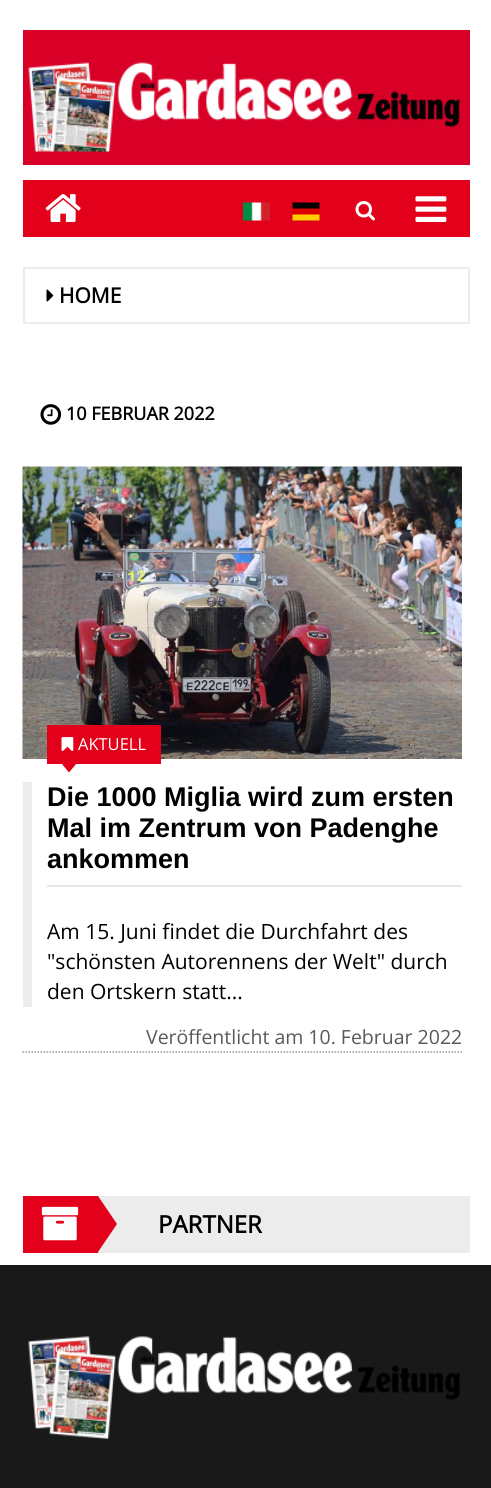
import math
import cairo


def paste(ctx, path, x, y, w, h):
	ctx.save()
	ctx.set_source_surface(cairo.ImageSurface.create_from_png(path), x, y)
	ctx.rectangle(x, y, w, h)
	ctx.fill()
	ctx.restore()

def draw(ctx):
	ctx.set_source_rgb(1, 1, 1)
	ctx.paint()
	ctx.set_source_rgb(0.847, 0, 0.153)
	ctx.rectangle(23, 30, 447, 135)
	ctx.fill()
	paste(ctx, 'media/1.png', 28, 62, 433, 90)
	ctx.set_source_rgb(0.886, 0, 0.102)
	ctx.rectangle(23, 180, 447, 57)
	ctx.fill()
	paste(ctx, 'media/2.png', 45, 194, 36, 28)
	paste(ctx, 'media/3.png', 243, 202, 27, 19)
	paste(ctx, 'media/4.png', 292, 202, 28, 19)
	paste(ctx, 'media/5.png', 355, 201, 20, 20)
	paste(ctx, 'media/6.png', 415, 196, 32, 26)
	ctx.rectangle(24, 268, 445, 55)
	ctx.set_source_rgb(0.925, 0.925, 0.925)
	ctx.stroke()
	paste(ctx, 'media/7.png', 46, 289, 8, 13)
	ctx.select_font_face('Open Sans', cairo.FONT_SLANT_NORMAL, cairo.FONT_WEIGHT_BOLD)
	ctx.set_font_size(21)
	ctx.set_source_rgb(0, 0, 0)
	ctx.move_to(59, 303)
	ctx.show_text('HOME')
	paste(ctx, 'media/8.png', 40, 404, 22, 21)
	ctx.set_font_size(18)
	ctx.move_to(66, 420)
	ctx.show_text('10 FEBRUAR 2022')
	ctx.new_path()
	ctx.move_to(22.5, 1052)
	ctx.line_to(462, 1052)
	ctx.set_source_rgb(0.6, 0.6, 0.6)
	ctx.set_line_width(1.5)
	ctx.set_dash([1.5, 1.5])
	ctx.stroke()
	paste(ctx, 'media/9.png', 22, 466, 440, 293)
	ctx.set_source_rgb(0.925, 0.925, 0.925)
	ctx.rectangle(23, 782, 9, 225)
	ctx.fill()
	ctx.set_source_rgb(0.886, 0, 0.102)
	ctx.rectangle(47, 725, 114, 39)
	ctx.fill()
	paste(ctx, 'media/10.png', 61, 737, 13, 14)
	ctx.select_font_face('Open Sans')
	ctx.set_font_size(16.5)
	ctx.set_source_rgb(1, 1, 1)
	ctx.move_to(78, 750)
	ctx.show_text('AKTUELL')
	ctx.set_source_rgb(0.886, 0, 0.102)
	ctx.new_path()
	ctx.move_to(61.5, 763.5)
	ctx.line_to(76.5, 763.5)
	ctx.line_to(69, 772.5)
	ctx.close_path()
	ctx.fill()
	ctx.select_font_face('Liberation Sans', cairo.FONT_SLANT_NORMAL, cairo.FONT_WEIGHT_BOLD)
	ctx.set_font_size(27)
	ctx.set_source_rgb(0, 0, 0)
	for x, y, s in [
		(47, 806, 'Die 1000 Miglia wird zum ersten'),
		(47, 837, 'Mal im Zentrum von Padenghe'),
		(47, 868, 'ankommen'),
	]:
		ctx.move_to(x, y)
		ctx.show_text(s)
	ctx.set_source_rgb(0.902, 0.902, 0.902)
	ctx.rectangle(47, 885, 415, 2)
	ctx.fill()
	ctx.select_font_face('Open Sans')
	ctx.set_font_size(21)
	ctx.set_source_rgb(0, 0, 0)
	for x, y, s in [
		(47, 939, 'Am 15. Juni findet die Durchfahrt des'),
		(47, 969, '"schönsten Autorennens der Welt" durch'),
		(47, 999, 'den Ortskern statt...'),
	]:
		ctx.move_to(x, y)
		ctx.show_text(s)
	ctx.set_font_size(19.5)
	ctx.set_source_rgb(0.349, 0.349, 0.349)
	ctx.move_to(146, 1044)
	ctx.show_text('Veröffentlicht am 10. Februar 2022')
	ctx.set_source_rgb(0.925, 0.925, 0.925)
	ctx.rectangle(98, 1196, 372, 57)
	ctx.fill()
	ctx.set_source_rgb(0.886, 0, 0.102)
	ctx.rectangle(23, 1196, 75, 57)
	ctx.fill()
	paste(ctx, 'media/11.png', 41, 1206, 38, 35)
	ctx.new_path()
	ctx.move_to(98, 1252)
	ctx.line_to(98, 1196)
	ctx.line_to(117, 1224)
	ctx.close_path()
	ctx.fill()
	ctx.select_font_face('Open Sans', cairo.FONT_SLANT_NORMAL, cairo.FONT_WEIGHT_BOLD)
	ctx.set_font_size(24)
	ctx.set_source_rgb(0, 0, 0)
	ctx.move_to(158, 1233)
	ctx.show_text('PARTNER')
	ctx.set_source_rgb(0.098, 0.098, 0.098)
	ctx.rectangle(0, 1265, 491, 223)
	ctx.fill()
	paste(ctx, 'media/12.png', 28, 1336, 432, 103)


surface = cairo.ImageSurface(cairo.FORMAT_RGB24, 491, 1488)
ctx = cairo.Context(surface)
options = cairo.FontOptions()
options.set_hint_metrics(cairo.HINT_METRICS_OFF)
options.set_hint_style(cairo.HINT_STYLE_NONE)
ctx.set_font_options(options)
ctx.set_miter_limit(4)
draw(ctx)
surface.write_to_png('image.png')
